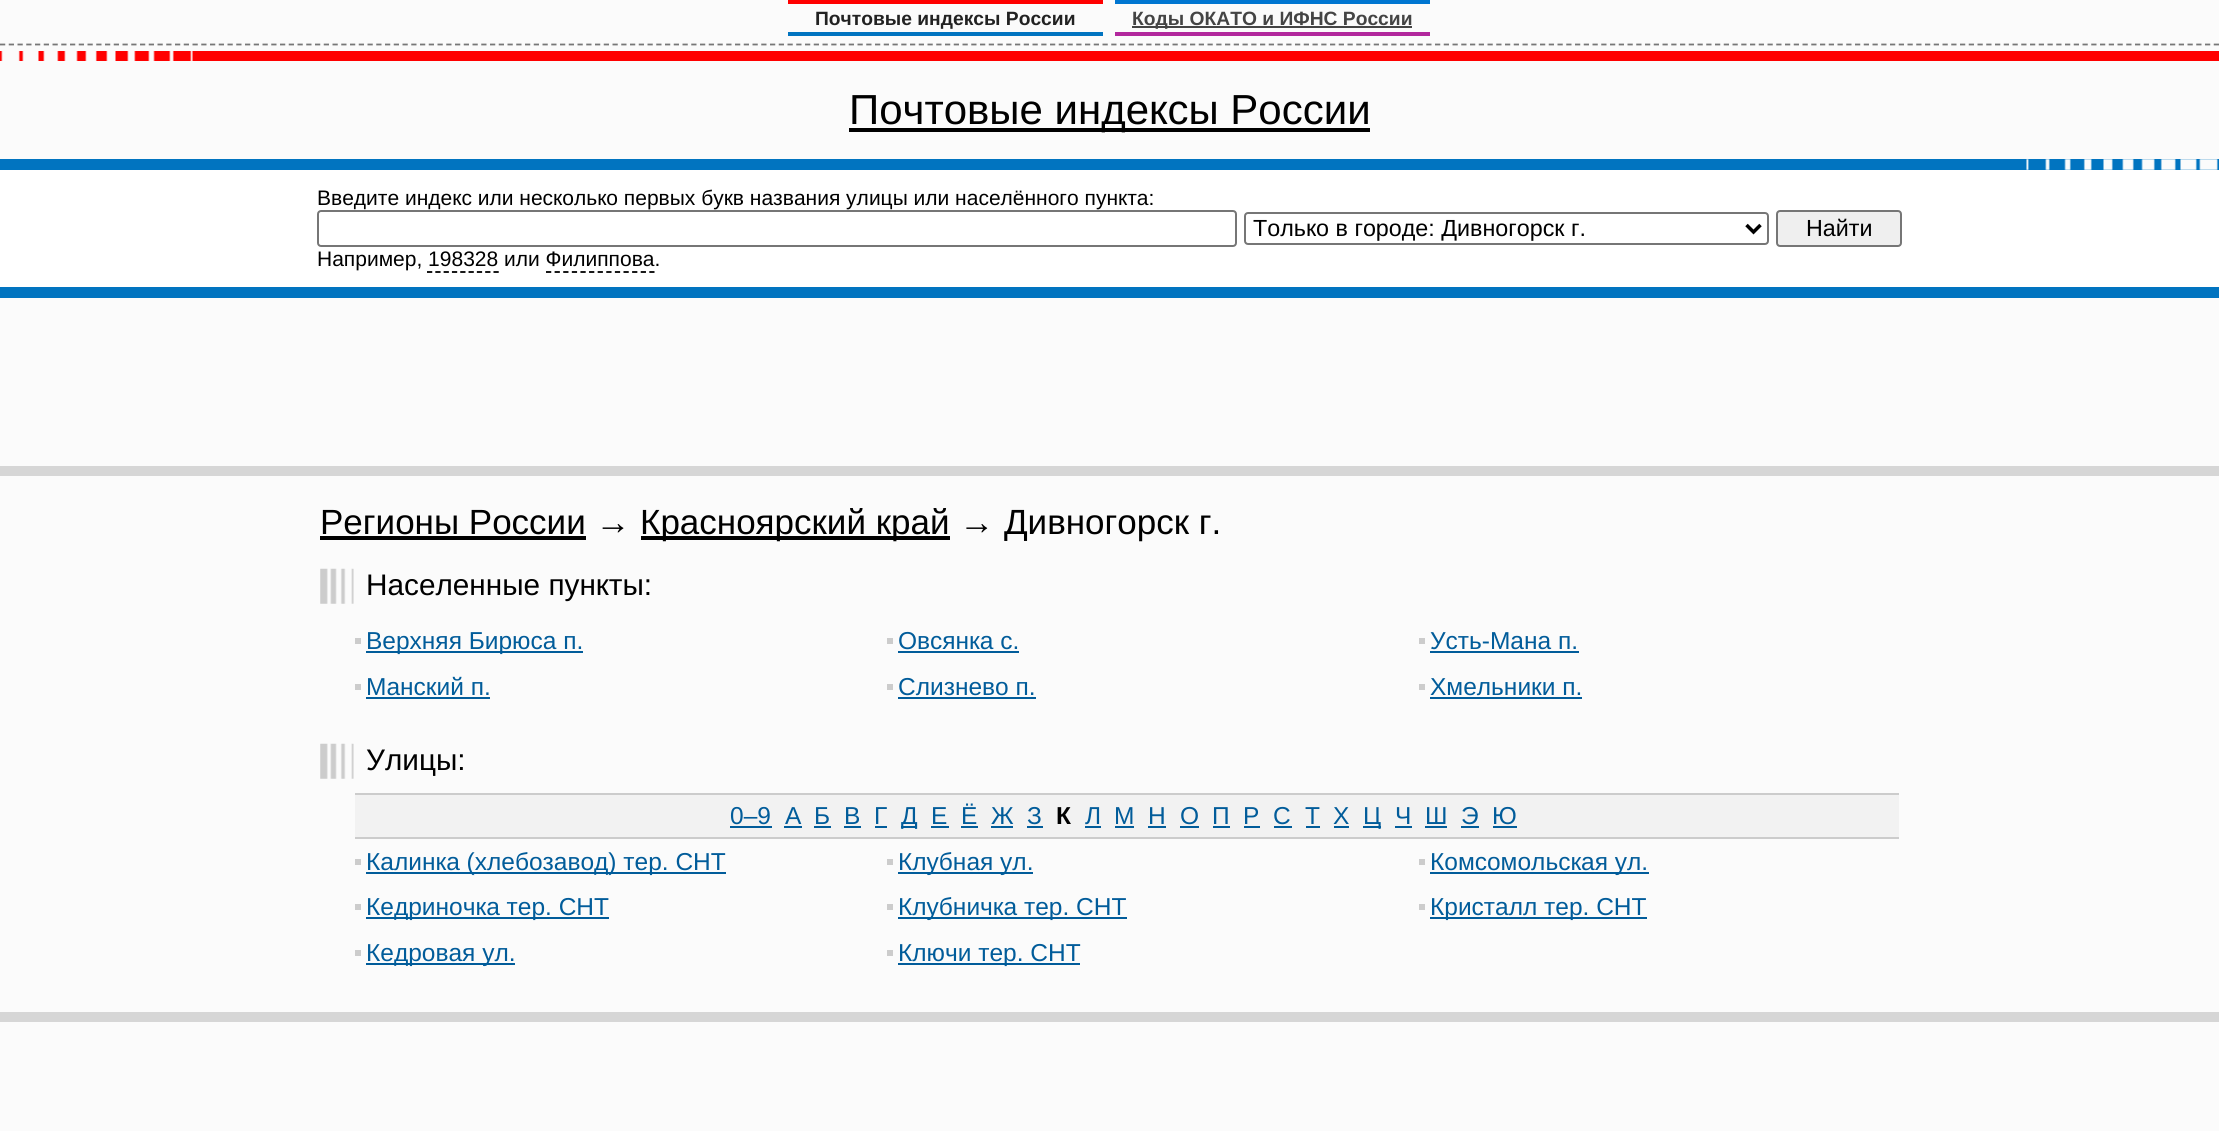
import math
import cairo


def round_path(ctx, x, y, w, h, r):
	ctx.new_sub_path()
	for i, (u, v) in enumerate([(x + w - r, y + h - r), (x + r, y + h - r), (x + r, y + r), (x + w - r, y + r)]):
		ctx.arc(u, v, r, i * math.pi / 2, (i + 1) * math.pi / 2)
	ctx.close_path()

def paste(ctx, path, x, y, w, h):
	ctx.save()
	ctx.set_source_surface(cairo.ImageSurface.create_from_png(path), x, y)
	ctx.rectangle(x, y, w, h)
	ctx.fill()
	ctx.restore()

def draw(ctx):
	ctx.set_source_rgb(0.984, 0.984, 0.984)
	ctx.paint()
	ctx.new_path()
	ctx.move_to(0, 44.5)
	ctx.line_to(2219, 44.5)
	ctx.set_source_rgb(0.467, 0.467, 0.467)
	ctx.set_line_width(1.8)
	ctx.set_dash([5.25, 3.5])
	ctx.stroke()
	ctx.set_source_rgb(1, 0, 0)
	ctx.rectangle(788, 0, 315, 4)
	ctx.fill()
	ctx.set_source_rgb(0.004, 0.455, 0.753)
	ctx.rectangle(788, 32, 315, 4)
	ctx.fill()
	ctx.select_font_face('Liberation Sans', cairo.FONT_SLANT_NORMAL, cairo.FONT_WEIGHT_BOLD)
	ctx.set_font_size(19.25)
	ctx.set_source_rgb(0.133, 0.133, 0.133)
	ctx.move_to(815, 25)
	ctx.show_text('Почтовые индексы России')
	ctx.set_source_rgb(0, 0.463, 0.82)
	ctx.rectangle(1115, 0, 315, 4)
	ctx.fill()
	ctx.set_source_rgb(0.698, 0.157, 0.616)
	ctx.rectangle(1115, 32, 315, 4)
	ctx.fill()
	ctx.set_source_rgb(0.267, 0.267, 0.267)
	ctx.rectangle(1132, 26, 280, 2)
	ctx.fill()
	ctx.move_to(1132, 25)
	ctx.show_text('Коды ОКАТО и ИФНС России')
	ctx.set_source_rgb(1, 0, 0)
	ctx.rectangle(0, 51, 2219, 10)
	ctx.fill()
	paste(ctx, 'media/1.png', 1, 51, 192, 10)
	ctx.set_source_rgb(0, 0, 0)
	ctx.rectangle(849, 128, 521, 4)
	ctx.fill()
	ctx.select_font_face('Liberation Sans')
	ctx.set_font_size(42)
	ctx.move_to(849, 124)
	ctx.show_text('Почтовые индексы России')
	ctx.set_source_rgb(0.004, 0.455, 0.753)
	ctx.rectangle(0, 159, 2219, 11)
	ctx.fill()
	paste(ctx, 'media/2.png', 2026, 159, 192, 11)
	ctx.set_source_rgb(1, 1, 1)
	ctx.rectangle(0, 170, 2219, 117)
	ctx.fill()
	ctx.set_font_size(21)
	ctx.set_source_rgb(0, 0, 0)
	ctx.move_to(317, 205)
	ctx.show_text('Введите индекс или несколько первых букв названия улицы или населённого пункта:')
	round_path(ctx, 318, 211, 918, 35, 3)
	ctx.set_source_rgb(0.463, 0.463, 0.463)
	ctx.set_line_width(2)
	ctx.set_dash([])
	ctx.stroke()
	round_path(ctx, 1245, 213, 523, 31, 3)
	ctx.stroke()
	ctx.new_path()
	ctx.move_to(1746.5, 225)
	ctx.line_to(1753.5, 232)
	ctx.line_to(1760.5, 225)
	ctx.set_source_rgb(0, 0, 0)
	ctx.set_line_width(3.5)
	ctx.stroke()
	ctx.set_font_size(23.3)
	ctx.move_to(1253, 236)
	ctx.show_text('Только в городе: Дивногорск г.')
	ctx.set_source_rgb(0.937, 0.937, 0.937)
	round_path(ctx, 1777, 211, 124, 35, 3)
	ctx.fill_preserve()
	ctx.set_source_rgb(0.463, 0.463, 0.463)
	ctx.set_line_width(2)
	ctx.stroke()
	ctx.set_source_rgb(0, 0, 0)
	ctx.move_to(1806, 236)
	ctx.show_text('Найти')
	ctx.set_font_size(21)
	ctx.move_to(317, 266)
	ctx.show_text('Например, 198328 или Филиппова.')
	ctx.new_path()
	ctx.move_to(427, 272)
	ctx.line_to(499, 272)
	ctx.set_line_width(1.8)
	ctx.set_dash([5.25, 3.06])
	ctx.stroke()
	ctx.new_path()
	ctx.move_to(546, 272)
	ctx.line_to(654.5, 272)
	ctx.set_dash([5.25, 3.36])
	ctx.stroke()
	ctx.set_source_rgb(0.004, 0.455, 0.753)
	ctx.rectangle(0, 287, 2219, 11)
	ctx.fill()
	ctx.set_source_rgb(0.839, 0.839, 0.839)
	ctx.rectangle(0, 466, 2219, 10)
	ctx.fill()
	ctx.set_font_size(35)
	ctx.set_source_rgb(0, 0, 0)
	ctx.move_to(320, 534)
	ctx.show_text('Регионы России →')
	ctx.rectangle(320, 536, 266, 4)
	ctx.fill()
	ctx.rectangle(641, 536, 309, 4)
	ctx.fill()
	ctx.move_to(640, 534)
	ctx.show_text('Красноярский край → Дивногорск г.')
	paste(ctx, 'media/3.png', 320, 568, 34, 36)
	ctx.set_font_size(29.75)
	ctx.move_to(366, 595)
	ctx.show_text('Населенные пункты:')
	ctx.set_source_rgb(0.8, 0.8, 0.8)
	ctx.rectangle(355, 638, 6, 6)
	ctx.fill()
	ctx.set_source_rgb(0.004, 0.361, 0.604)
	ctx.rectangle(366, 651, 217, 2)
	ctx.fill()
	ctx.set_font_size(24.5)
	ctx.move_to(366, 649)
	ctx.show_text('Верхняя Бирюса п.')
	ctx.set_source_rgb(0.8, 0.8, 0.8)
	ctx.rectangle(355, 684, 6, 6)
	ctx.fill()
	ctx.set_source_rgb(0.004, 0.361, 0.604)
	ctx.move_to(366, 695)
	ctx.show_text('Манский п.')
	ctx.rectangle(366, 697, 124, 2)
	ctx.fill()
	ctx.set_source_rgb(0.8, 0.8, 0.8)
	ctx.rectangle(887, 638, 6, 6)
	ctx.fill()
	ctx.set_source_rgb(0.004, 0.361, 0.604)
	ctx.move_to(898, 649)
	ctx.show_text('Овсянка с.')
	ctx.rectangle(898, 651, 121, 2)
	ctx.fill()
	ctx.set_source_rgb(0.8, 0.8, 0.8)
	ctx.rectangle(887, 684, 6, 6)
	ctx.fill()
	ctx.set_source_rgb(0.004, 0.361, 0.604)
	ctx.move_to(898, 695)
	ctx.show_text('Слизнево п.')
	ctx.rectangle(898, 697, 138, 2)
	ctx.fill()
	ctx.set_source_rgb(0.8, 0.8, 0.8)
	ctx.rectangle(1419, 638, 6, 6)
	ctx.fill()
	ctx.set_source_rgb(0.004, 0.361, 0.604)
	ctx.move_to(1430, 649)
	ctx.show_text('Усть-Мана п.')
	ctx.rectangle(1430, 651, 149, 2)
	ctx.fill()
	ctx.set_source_rgb(0.8, 0.8, 0.8)
	ctx.rectangle(1419, 684, 6, 6)
	ctx.fill()
	ctx.set_source_rgb(0.004, 0.361, 0.604)
	ctx.move_to(1430, 695)
	ctx.show_text('Хмельники п.')
	ctx.rectangle(1430, 697, 152, 2)
	ctx.fill()
	paste(ctx, 'media/3.png', 320, 743, 34, 36)
	ctx.set_font_size(29.75)
	ctx.set_source_rgb(0, 0, 0)
	ctx.move_to(366, 770)
	ctx.show_text('Улицы:')
	ctx.set_source_rgb(0.949, 0.949, 0.949)
	ctx.rectangle(355, 795, 1544, 42)
	ctx.fill()
	ctx.set_source_rgb(0.8, 0.8, 0.8)
	ctx.rectangle(355, 793, 1544, 2)
	ctx.rectangle(355, 837, 1544, 2)
	ctx.fill()
	ctx.set_font_size(24.5)
	ctx.set_source_rgb(0.004, 0.361, 0.604)
	ctx.move_to(730, 824)
	ctx.show_text('0–9')
	ctx.rectangle(730, 826, 42, 2)
	ctx.fill()
	ctx.move_to(785, 824)
	ctx.show_text('А')
	ctx.rectangle(784, 826, 18, 2)
	ctx.fill()
	ctx.move_to(814, 824)
	ctx.show_text('Б')
	ctx.rectangle(814, 826, 17, 2)
	ctx.fill()
	ctx.move_to(844, 824)
	ctx.show_text('В')
	ctx.rectangle(844, 826, 17, 2)
	ctx.fill()
	ctx.move_to(874, 824)
	ctx.show_text('Г')
	ctx.rectangle(875, 826, 12, 2)
	ctx.fill()
	ctx.rectangle(901, 826, 16, 2)
	ctx.fill()
	ctx.move_to(901, 824)
	ctx.show_text('Д')
	ctx.move_to(931, 824)
	ctx.show_text('Е')
	ctx.rectangle(931, 826, 18, 2)
	ctx.fill()
	ctx.move_to(961, 824)
	ctx.show_text('Ё')
	ctx.rectangle(961, 826, 17, 2)
	ctx.fill()
	ctx.move_to(991, 824)
	ctx.show_text('Ж')
	ctx.rectangle(991, 826, 22, 2)
	ctx.fill()
	ctx.move_to(1027, 824)
	ctx.show_text('З')
	ctx.rectangle(1027, 826, 16, 2)
	ctx.fill()
	ctx.select_font_face('Liberation Sans', cairo.FONT_SLANT_NORMAL, cairo.FONT_WEIGHT_BOLD)
	ctx.set_source_rgb(0, 0, 0)
	ctx.move_to(1056, 824)
	ctx.show_text('К')
	ctx.select_font_face('Liberation Sans')
	ctx.set_source_rgb(0.004, 0.361, 0.604)
	ctx.move_to(1085, 824)
	ctx.show_text('Л')
	ctx.rectangle(1085, 826, 16, 2)
	ctx.fill()
	ctx.move_to(1114, 824)
	ctx.show_text('М')
	ctx.rectangle(1115, 826, 19, 2)
	ctx.fill()
	ctx.move_to(1148, 824)
	ctx.show_text('Н')
	ctx.rectangle(1148, 826, 18, 2)
	ctx.fill()
	ctx.move_to(1180, 824)
	ctx.show_text('О')
	ctx.rectangle(1180, 826, 19, 2)
	ctx.fill()
	ctx.move_to(1212, 824)
	ctx.show_text('П')
	ctx.rectangle(1213, 826, 17, 2)
	ctx.fill()
	ctx.move_to(1243, 824)
	ctx.show_text('Р')
	ctx.rectangle(1244, 826, 16, 2)
	ctx.fill()
	ctx.move_to(1273, 824)
	ctx.show_text('С')
	ctx.rectangle(1274, 826, 18, 2)
	ctx.fill()
	ctx.move_to(1305, 824)
	ctx.show_text('Т')
	ctx.rectangle(1306, 826, 14, 2)
	ctx.fill()
	ctx.move_to(1333, 824)
	ctx.show_text('Х')
	ctx.rectangle(1334, 826, 15, 2)
	ctx.fill()
	ctx.rectangle(1363, 826, 18, 2)
	ctx.fill()
	ctx.move_to(1363, 824)
	ctx.show_text('Ц')
	ctx.move_to(1395, 824)
	ctx.show_text('Ч')
	ctx.rectangle(1395, 826, 17, 2)
	ctx.fill()
	ctx.move_to(1425, 824)
	ctx.show_text('Ш')
	ctx.rectangle(1425, 826, 22, 2)
	ctx.fill()
	ctx.move_to(1461, 824)
	ctx.show_text('Э')
	ctx.rectangle(1461, 826, 18, 2)
	ctx.fill()
	ctx.move_to(1492, 824)
	ctx.show_text('Ю')
	ctx.rectangle(1493, 826, 24, 2)
	ctx.fill()
	ctx.set_source_rgb(0.8, 0.8, 0.8)
	ctx.rectangle(355, 859, 6, 6)
	ctx.fill()
	ctx.set_source_rgb(0.004, 0.361, 0.604)
	ctx.rectangle(366, 872, 360, 2)
	ctx.fill()
	ctx.move_to(366, 870)
	ctx.show_text('Калинка (хлебозавод) тер. СНТ')
	ctx.set_source_rgb(0.8, 0.8, 0.8)
	ctx.rectangle(355, 904, 6, 6)
	ctx.fill()
	ctx.set_source_rgb(0.004, 0.361, 0.604)
	ctx.rectangle(366, 917, 243, 2)
	ctx.fill()
	ctx.move_to(366, 915)
	ctx.show_text('Кедриночка тер. СНТ')
	ctx.set_source_rgb(0.8, 0.8, 0.8)
	ctx.rectangle(355, 950, 6, 6)
	ctx.fill()
	ctx.set_source_rgb(0.004, 0.361, 0.604)
	ctx.rectangle(366, 963, 149, 2)
	ctx.fill()
	ctx.move_to(366, 961)
	ctx.show_text('Кедровая ул.')
	ctx.set_source_rgb(0.8, 0.8, 0.8)
	ctx.rectangle(887, 859, 6, 6)
	ctx.fill()
	ctx.set_source_rgb(0.004, 0.361, 0.604)
	ctx.rectangle(898, 872, 135, 2)
	ctx.fill()
	ctx.move_to(898, 870)
	ctx.show_text('Клубная ул.')
	ctx.set_source_rgb(0.8, 0.8, 0.8)
	ctx.rectangle(887, 904, 6, 6)
	ctx.fill()
	ctx.set_source_rgb(0.004, 0.361, 0.604)
	ctx.rectangle(898, 917, 229, 2)
	ctx.fill()
	ctx.move_to(898, 915)
	ctx.show_text('Клубничка тер. СНТ')
	ctx.set_source_rgb(0.8, 0.8, 0.8)
	ctx.rectangle(887, 950, 6, 6)
	ctx.fill()
	ctx.set_source_rgb(0.004, 0.361, 0.604)
	ctx.rectangle(898, 963, 182, 2)
	ctx.fill()
	ctx.move_to(898, 961)
	ctx.show_text('Ключи тер. СНТ')
	ctx.set_source_rgb(0.8, 0.8, 0.8)
	ctx.rectangle(1419, 859, 6, 6)
	ctx.fill()
	ctx.set_source_rgb(0.004, 0.361, 0.604)
	ctx.rectangle(1430, 872, 219, 2)
	ctx.fill()
	ctx.move_to(1430, 870)
	ctx.show_text('Комсомольская ул.')
	ctx.set_source_rgb(0.8, 0.8, 0.8)
	ctx.rectangle(1419, 904, 6, 6)
	ctx.fill()
	ctx.set_source_rgb(0.004, 0.361, 0.604)
	ctx.rectangle(1430, 917, 217, 2)
	ctx.fill()
	ctx.move_to(1430, 915)
	ctx.show_text('Кристалл тер. СНТ')
	ctx.set_source_rgb(0.839, 0.839, 0.839)
	ctx.rectangle(0, 1012, 2219, 10)
	ctx.fill()


surface = cairo.ImageSurface(cairo.FORMAT_RGB24, 2219, 1131)
ctx = cairo.Context(surface)
options = cairo.FontOptions()
options.set_hint_metrics(cairo.HINT_METRICS_OFF)
options.set_hint_style(cairo.HINT_STYLE_NONE)
ctx.set_font_options(options)
ctx.set_miter_limit(4)
draw(ctx)
surface.write_to_png('image.png')
